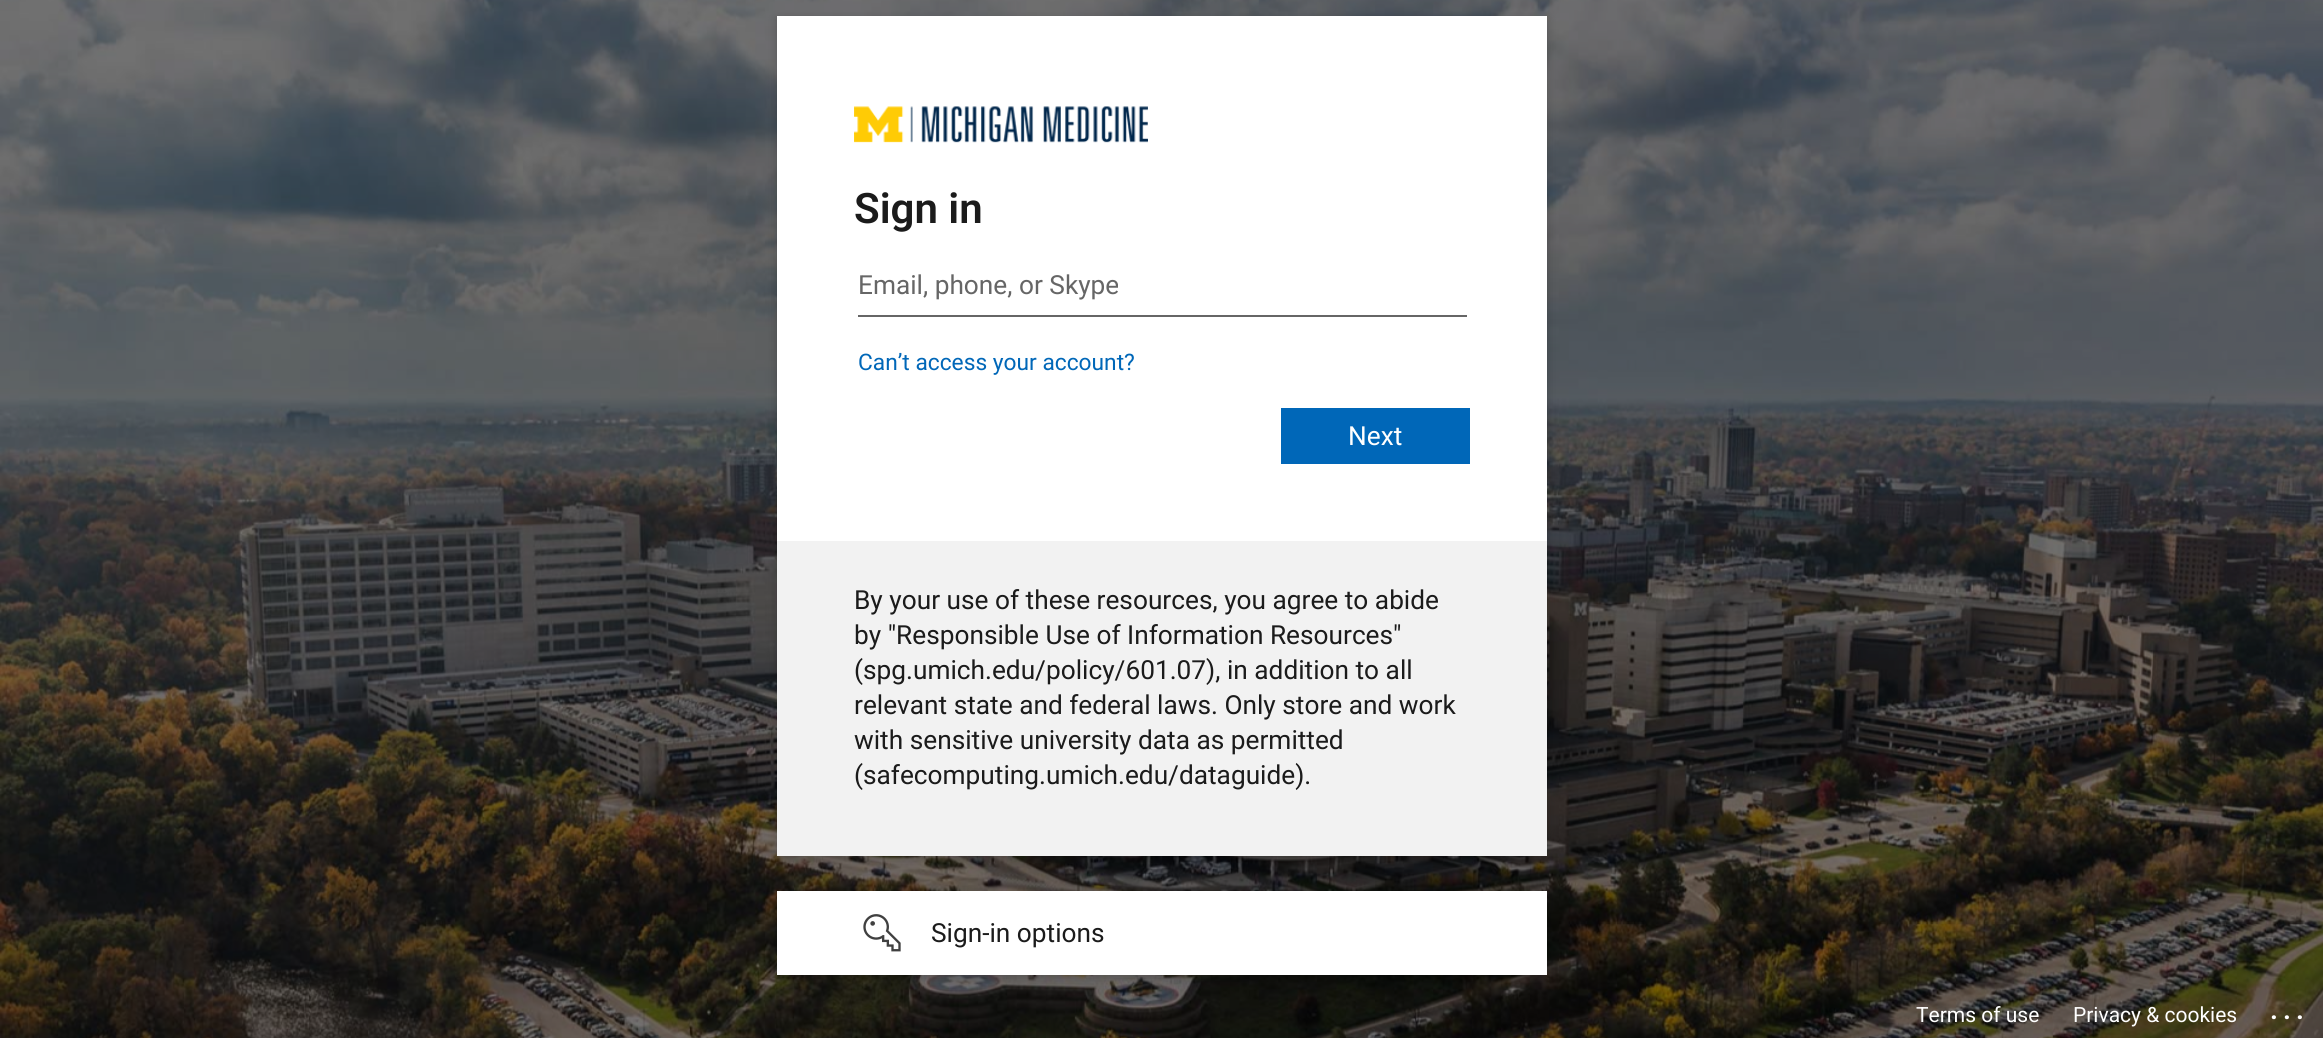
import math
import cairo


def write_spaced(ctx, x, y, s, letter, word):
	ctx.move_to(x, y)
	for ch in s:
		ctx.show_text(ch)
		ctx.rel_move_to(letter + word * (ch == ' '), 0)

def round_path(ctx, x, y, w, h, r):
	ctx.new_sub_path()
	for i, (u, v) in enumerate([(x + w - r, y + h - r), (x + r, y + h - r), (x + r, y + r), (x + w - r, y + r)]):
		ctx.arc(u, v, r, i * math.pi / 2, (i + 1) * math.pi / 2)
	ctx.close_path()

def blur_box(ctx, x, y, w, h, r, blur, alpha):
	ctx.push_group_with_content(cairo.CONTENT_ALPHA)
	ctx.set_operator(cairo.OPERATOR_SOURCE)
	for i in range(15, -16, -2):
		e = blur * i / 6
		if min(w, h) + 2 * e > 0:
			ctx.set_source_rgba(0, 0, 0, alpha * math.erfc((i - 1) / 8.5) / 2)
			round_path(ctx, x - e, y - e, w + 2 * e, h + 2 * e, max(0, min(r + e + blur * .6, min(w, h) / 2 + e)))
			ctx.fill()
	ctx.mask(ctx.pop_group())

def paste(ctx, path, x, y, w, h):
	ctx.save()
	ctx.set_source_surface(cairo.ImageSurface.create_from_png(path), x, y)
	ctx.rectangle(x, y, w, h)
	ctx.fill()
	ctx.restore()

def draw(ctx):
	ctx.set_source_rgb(1, 1, 1)
	ctx.paint()
	paste(ctx, 'media/1.png', 0, 0, 2323, 1038)
	ctx.set_source_rgb(0, 0, 0)
	blur_box(ctx, 777, 19, 770, 840, 0, 5, 0.2)
	ctx.set_source_rgb(1, 1, 1)
	ctx.rectangle(777, 16, 770, 525)
	ctx.fill()
	paste(ctx, 'media/2.png', 854, 106, 294, 37)
	ctx.select_font_face('Roboto SemiBold')
	ctx.set_font_size(42)
	ctx.set_source_rgb(0.106, 0.106, 0.106)
	ctx.move_to(854, 223)
	ctx.show_text('Sign in')
	ctx.set_source_rgb(0.4, 0.4, 0.4)
	ctx.rectangle(858, 315, 609, 2)
	ctx.fill()
	ctx.select_font_face('Roboto')
	ctx.set_font_size(26.25)
	ctx.move_to(858, 294)
	ctx.show_text('Email, phone, or Skype')
	ctx.set_font_size(22.75)
	ctx.set_source_rgb(0, 0.404, 0.722)
	ctx.move_to(858, 370)
	ctx.show_text('Can’t access your account?')
	ctx.rectangle(1281, 408, 189, 56)
	ctx.fill()
	ctx.set_font_size(26.25)
	ctx.set_source_rgb(1, 1, 1)
	ctx.move_to(1348, 445)
	ctx.show_text('Next')
	ctx.set_source_rgb(0.949, 0.949, 0.949)
	ctx.rectangle(777, 541, 770, 315)
	ctx.fill()
	ctx.set_source_rgb(0.106, 0.106, 0.106)
	for x, y, s in [
		(854, 609, 'By your use of these resources, you agree to abide'),
		(854, 644, 'by "Responsible Use of Information Resources"'),
		(854, 679, '(spg.umich.edu/policy/601.07), in addition to all'),
		(854, 714, 'relevant state and federal laws. Only store and work'),
		(854, 749, 'with sensitive university data as permitted'),
		(854, 784, '(safecomputing.umich.edu/dataguide).'),
	]:
		ctx.move_to(x, y)
		ctx.show_text(s)
	ctx.set_source_rgb(0, 0, 0)
	blur_box(ctx, 777, 894, 770, 84, 0, 5, 0.2)
	ctx.set_source_rgb(1, 1, 1)
	ctx.rectangle(777, 891, 770, 84)
	ctx.fill()
	paste(ctx, 'media/3.png', 863, 914, 38, 38)
	ctx.set_source_rgb(0.106, 0.106, 0.106)
	ctx.move_to(931, 942)
	ctx.show_text('Sign-in options')
	ctx.set_font_size(21)
	ctx.set_source_rgb(1, 1, 1)
	ctx.move_to(1916, 1022)
	ctx.show_text('Terms of use')
	ctx.move_to(2073, 1022)
	ctx.show_text('Privacy & cookies')
	ctx.select_font_face('Roboto SemiBold')
	ctx.set_font_size(28)
	write_spaced(ctx, 2270, 1019, '...', 5, 0)


surface = cairo.ImageSurface(cairo.FORMAT_RGB24, 2323, 1038)
ctx = cairo.Context(surface)
options = cairo.FontOptions()
options.set_hint_metrics(cairo.HINT_METRICS_OFF)
options.set_hint_style(cairo.HINT_STYLE_NONE)
ctx.set_font_options(options)
ctx.set_miter_limit(4)
draw(ctx)
surface.write_to_png('image.png')
